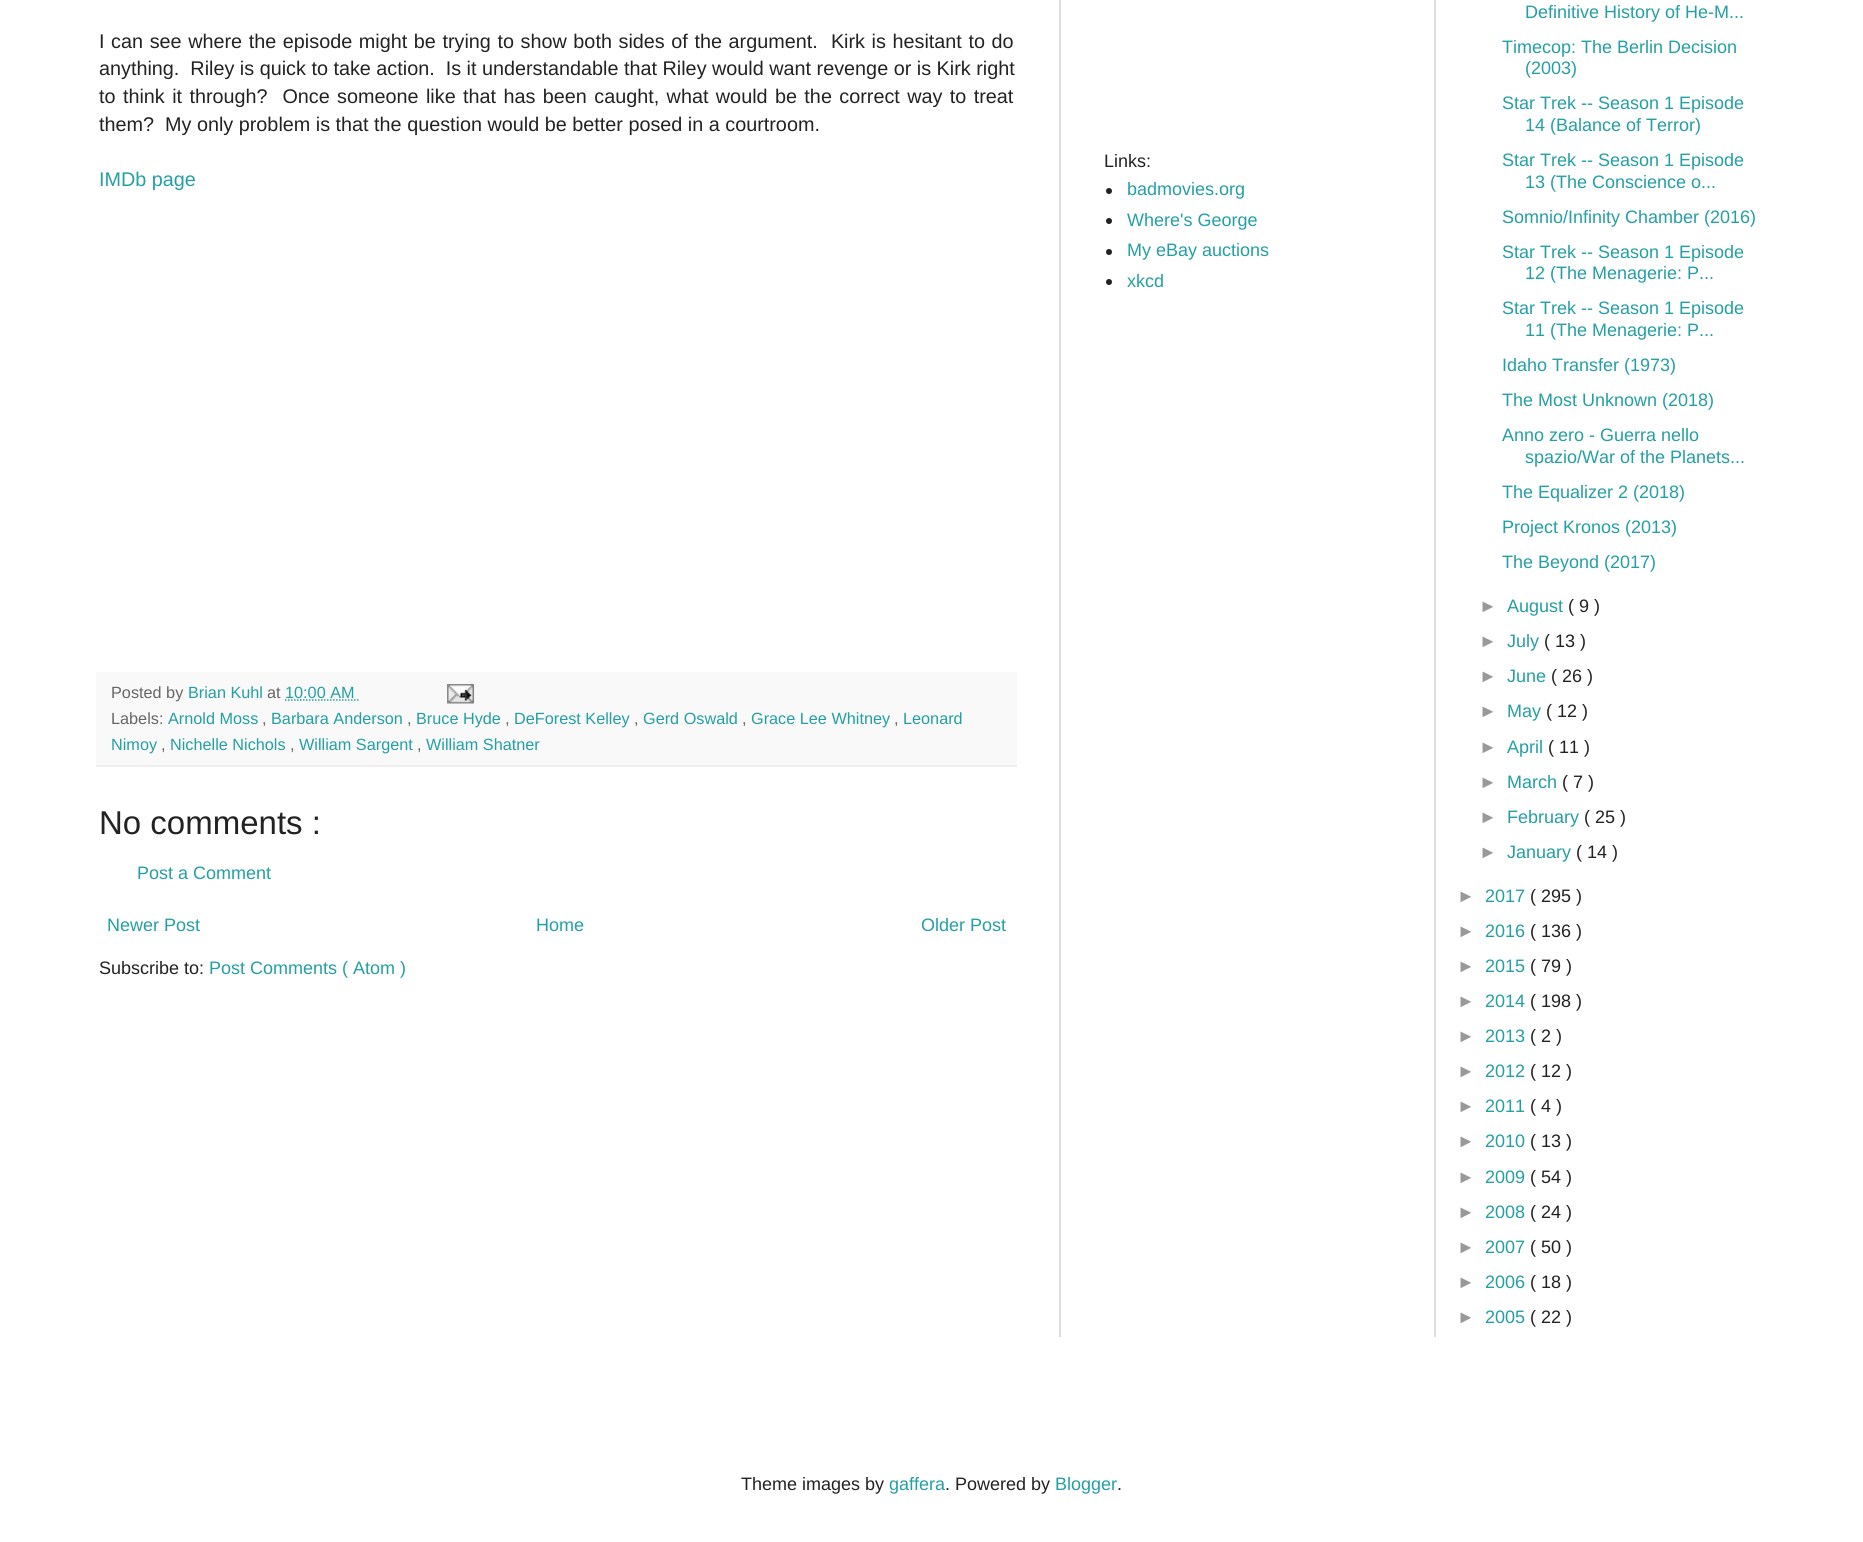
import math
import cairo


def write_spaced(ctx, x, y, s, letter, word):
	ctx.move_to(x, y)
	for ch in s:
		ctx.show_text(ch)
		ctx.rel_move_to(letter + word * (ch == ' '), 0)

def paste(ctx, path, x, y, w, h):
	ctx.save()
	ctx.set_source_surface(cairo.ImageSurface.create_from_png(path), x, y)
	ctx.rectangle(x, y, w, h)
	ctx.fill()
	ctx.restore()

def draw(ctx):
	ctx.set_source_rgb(1, 1, 1)
	ctx.paint()
	ctx.set_source_rgb(0.867, 0.867, 0.867)
	ctx.rectangle(1059, 0, 2, 1337)
	ctx.fill()
	ctx.select_font_face('Liberation Sans')
	ctx.set_font_size(19.8)
	ctx.set_source_rgb(0.133, 0.133, 0.133)
	write_spaced(ctx, 99, 48, 'I can see where the episode might be trying to show both sides of the argument.  Kirk is hesitant to do', 0, 1.1)
	ctx.move_to(99, 75)
	ctx.show_text('anything.  Riley is quick to take action.  Is it understandable that Riley would want revenge or is Kirk right')
	write_spaced(ctx, 99, 103, 'to think it through?  Once someone like that has been caught, what would be the correct way to treat', 0, 1.9)
	ctx.move_to(99, 131)
	ctx.show_text('them?  My only problem is that the question would be better posed in a courtroom.')
	ctx.set_source_rgb(0.141, 0.624, 0.639)
	ctx.move_to(99, 186)
	ctx.show_text('IMDb page')
	ctx.set_source_rgb(0.976, 0.976, 0.976)
	ctx.rectangle(96, 672, 921, 93)
	ctx.fill()
	ctx.set_source_rgb(0.933, 0.933, 0.933)
	ctx.rectangle(96, 765, 921, 2)
	ctx.fill()
	ctx.set_font_size(16.25)
	ctx.set_source_rgb(0.4, 0.4, 0.4)
	ctx.move_to(111, 698)
	ctx.show_text('Posted by')
	ctx.set_source_rgb(0.141, 0.624, 0.639)
	ctx.move_to(188, 698)
	ctx.show_text('Brian Kuhl')
	ctx.set_source_rgb(0.4, 0.4, 0.4)
	ctx.move_to(267, 698)
	ctx.show_text('at')
	ctx.set_source_rgb(0.141, 0.624, 0.639)
	ctx.move_to(285, 698)
	ctx.show_text('10:00 AM')
	ctx.new_path()
	ctx.move_to(285, 700)
	ctx.line_to(358.5, 700)
	ctx.set_line_width(1.5)
	ctx.set_dash([1.5, 1.5])
	ctx.stroke()
	paste(ctx, 'media/1.png', 447, 684, 27, 20)
	ctx.set_source_rgb(0.4, 0.4, 0.4)
	ctx.move_to(111, 724)
	ctx.show_text('Labels:')
	ctx.set_source_rgb(0.141, 0.624, 0.639)
	ctx.move_to(168, 724)
	ctx.show_text('Arnold Moss')
	ctx.set_source_rgb(0.4, 0.4, 0.4)
	ctx.move_to(262, 724)
	ctx.show_text(',')
	ctx.set_source_rgb(0.141, 0.624, 0.639)
	ctx.move_to(271, 724)
	ctx.show_text('Barbara Anderson')
	ctx.set_source_rgb(0.4, 0.4, 0.4)
	ctx.move_to(407, 724)
	ctx.show_text(',')
	ctx.set_source_rgb(0.141, 0.624, 0.639)
	ctx.move_to(416, 724)
	ctx.show_text('Bruce Hyde')
	ctx.set_source_rgb(0.4, 0.4, 0.4)
	ctx.move_to(505, 724)
	ctx.show_text(',')
	ctx.set_source_rgb(0.141, 0.624, 0.639)
	ctx.move_to(514, 724)
	ctx.show_text('DeForest Kelley')
	ctx.set_source_rgb(0.4, 0.4, 0.4)
	ctx.move_to(634, 724)
	ctx.show_text(',')
	ctx.set_source_rgb(0.141, 0.624, 0.639)
	ctx.move_to(643, 724)
	ctx.show_text('Gerd Oswald')
	ctx.set_source_rgb(0.4, 0.4, 0.4)
	ctx.move_to(742, 724)
	ctx.show_text(',')
	ctx.set_source_rgb(0.141, 0.624, 0.639)
	ctx.move_to(751, 724)
	ctx.show_text('Grace Lee Whitney')
	ctx.set_source_rgb(0.4, 0.4, 0.4)
	ctx.move_to(894, 724)
	ctx.show_text(',')
	ctx.set_source_rgb(0.141, 0.624, 0.639)
	ctx.move_to(903, 724)
	ctx.show_text('Leonard')
	ctx.move_to(111, 750)
	ctx.show_text('Nimoy')
	ctx.set_source_rgb(0.4, 0.4, 0.4)
	ctx.move_to(161, 750)
	ctx.show_text(',')
	ctx.set_source_rgb(0.141, 0.624, 0.639)
	ctx.move_to(170, 750)
	ctx.show_text('Nichelle Nichols')
	ctx.set_source_rgb(0.4, 0.4, 0.4)
	ctx.move_to(290, 750)
	ctx.show_text(',')
	ctx.set_source_rgb(0.141, 0.624, 0.639)
	ctx.move_to(299, 750)
	ctx.show_text('William Sargent')
	ctx.set_source_rgb(0.4, 0.4, 0.4)
	ctx.move_to(417, 750)
	ctx.show_text(',')
	ctx.set_source_rgb(0.141, 0.624, 0.639)
	ctx.move_to(426, 750)
	ctx.show_text('William Shatner')
	ctx.set_font_size(33)
	ctx.set_source_rgb(0.133, 0.133, 0.133)
	ctx.move_to(99, 834)
	ctx.show_text('No comments :')
	ctx.set_font_size(18)
	ctx.set_source_rgb(0.141, 0.624, 0.639)
	for x, y, s in [
		(137, 879, 'Post a Comment'),
		(107, 931, 'Newer Post'),
		(536, 931, 'Home'),
		(921, 931, 'Older Post'),
	]:
		ctx.move_to(x, y)
		ctx.show_text(s)
	ctx.set_source_rgb(0.133, 0.133, 0.133)
	ctx.move_to(99, 974)
	ctx.show_text('Subscribe to:')
	ctx.set_source_rgb(0.141, 0.624, 0.639)
	ctx.move_to(209, 974)
	ctx.show_text('Post Comments ( Atom )')
	ctx.set_source_rgb(0.133, 0.133, 0.133)
	ctx.move_to(1104, 167)
	ctx.show_text('Links:')
	ctx.new_path()
	ctx.arc(1109, 191, 3, 0, 2 * math.pi)
	ctx.fill()
	ctx.set_source_rgb(0.141, 0.624, 0.639)
	ctx.move_to(1127, 195)
	ctx.show_text('badmovies.org')
	ctx.set_source_rgb(0.133, 0.133, 0.133)
	ctx.new_path()
	ctx.arc(1109, 221, 3, 0, 2 * math.pi)
	ctx.fill()
	ctx.set_source_rgb(0.141, 0.624, 0.639)
	ctx.move_to(1127, 226)
	ctx.show_text('Where\'s George')
	ctx.set_source_rgb(0.133, 0.133, 0.133)
	ctx.new_path()
	ctx.arc(1109, 252, 3, 0, 2 * math.pi)
	ctx.fill()
	ctx.set_source_rgb(0.141, 0.624, 0.639)
	ctx.move_to(1127, 256)
	ctx.show_text('My eBay auctions')
	ctx.set_source_rgb(0.133, 0.133, 0.133)
	ctx.new_path()
	ctx.arc(1109, 282, 3, 0, 2 * math.pi)
	ctx.fill()
	ctx.set_source_rgb(0.141, 0.624, 0.639)
	ctx.move_to(1127, 287)
	ctx.show_text('xkcd')
	ctx.set_source_rgb(0.867, 0.867, 0.867)
	ctx.rectangle(1434, 0, 2, 1337)
	ctx.fill()
	ctx.set_source_rgb(0.141, 0.624, 0.639)
	for x, y, s in [
		(1525, 18, 'Definitive History of He-M...'),
		(1502, 53, 'Timecop: The Berlin Decision'),
		(1525, 74, '(2003)'),
		(1502, 109, 'Star Trek -- Season 1 Episode'),
		(1525, 131, '14 (Balance of Terror)'),
		(1502, 166, 'Star Trek -- Season 1 Episode'),
		(1525, 188, '13 (The Conscience o...'),
		(1502, 223, 'Somnio/Infinity Chamber (2016)'),
		(1502, 258, 'Star Trek -- Season 1 Episode'),
		(1525, 279, '12 (The Menagerie: P...'),
		(1502, 314, 'Star Trek -- Season 1 Episode'),
		(1525, 336, '11 (The Menagerie: P...'),
		(1502, 371, 'Idaho Transfer (1973)'),
		(1502, 406, 'The Most Unknown (2018)'),
		(1502, 441, 'Anno zero - Guerra nello'),
		(1525, 463, 'spazio/War of the Planets...'),
		(1502, 498, 'The Equalizer 2 (2018)'),
		(1502, 533, 'Project Kronos (2013)'),
		(1502, 568, 'The Beyond (2017)'),
	]:
		ctx.move_to(x, y)
		ctx.show_text(s)
	ctx.set_source_rgb(0.6, 0.6, 0.6)
	ctx.move_to(1479, 612)
	ctx.show_text('►')
	ctx.set_source_rgb(0.141, 0.624, 0.639)
	ctx.move_to(1507, 612)
	ctx.show_text('August')
	ctx.set_source_rgb(0.133, 0.133, 0.133)
	ctx.move_to(1568, 612)
	ctx.show_text('( 9 )')
	ctx.set_source_rgb(0.6, 0.6, 0.6)
	ctx.move_to(1479, 647)
	ctx.show_text('►')
	ctx.set_source_rgb(0.141, 0.624, 0.639)
	ctx.move_to(1507, 647)
	ctx.show_text('July')
	ctx.set_source_rgb(0.133, 0.133, 0.133)
	ctx.move_to(1544, 647)
	ctx.show_text('( 13 )')
	ctx.set_source_rgb(0.6, 0.6, 0.6)
	ctx.move_to(1479, 682)
	ctx.show_text('►')
	ctx.set_source_rgb(0.141, 0.624, 0.639)
	ctx.move_to(1507, 682)
	ctx.show_text('June')
	ctx.set_source_rgb(0.133, 0.133, 0.133)
	ctx.move_to(1551, 682)
	ctx.show_text('( 26 )')
	ctx.set_source_rgb(0.6, 0.6, 0.6)
	ctx.move_to(1479, 717)
	ctx.show_text('►')
	ctx.set_source_rgb(0.141, 0.624, 0.639)
	ctx.move_to(1507, 717)
	ctx.show_text('May')
	ctx.set_source_rgb(0.133, 0.133, 0.133)
	ctx.move_to(1546, 717)
	ctx.show_text('( 12 )')
	ctx.set_source_rgb(0.6, 0.6, 0.6)
	ctx.move_to(1479, 753)
	ctx.show_text('►')
	ctx.set_source_rgb(0.141, 0.624, 0.639)
	ctx.move_to(1507, 753)
	ctx.show_text('April')
	ctx.set_source_rgb(0.133, 0.133, 0.133)
	ctx.move_to(1548, 753)
	ctx.show_text('( 11 )')
	ctx.set_source_rgb(0.6, 0.6, 0.6)
	ctx.move_to(1479, 788)
	ctx.show_text('►')
	ctx.set_source_rgb(0.141, 0.624, 0.639)
	ctx.move_to(1507, 788)
	ctx.show_text('March')
	ctx.set_source_rgb(0.133, 0.133, 0.133)
	ctx.move_to(1562, 788)
	ctx.show_text('( 7 )')
	ctx.set_source_rgb(0.6, 0.6, 0.6)
	ctx.move_to(1479, 823)
	ctx.show_text('►')
	ctx.set_source_rgb(0.141, 0.624, 0.639)
	ctx.move_to(1507, 823)
	ctx.show_text('February')
	ctx.set_source_rgb(0.133, 0.133, 0.133)
	ctx.move_to(1584, 823)
	ctx.show_text('( 25 )')
	ctx.set_source_rgb(0.6, 0.6, 0.6)
	ctx.move_to(1479, 858)
	ctx.show_text('►')
	ctx.set_source_rgb(0.141, 0.624, 0.639)
	ctx.move_to(1507, 858)
	ctx.show_text('January')
	ctx.set_source_rgb(0.133, 0.133, 0.133)
	ctx.move_to(1576, 858)
	ctx.show_text('( 14 )')
	ctx.set_source_rgb(0.6, 0.6, 0.6)
	ctx.move_to(1457, 902)
	ctx.show_text('►')
	ctx.set_source_rgb(0.141, 0.624, 0.639)
	ctx.move_to(1485, 902)
	ctx.show_text('2017')
	ctx.set_source_rgb(0.133, 0.133, 0.133)
	ctx.move_to(1530, 902)
	ctx.show_text('( 295 )')
	ctx.set_source_rgb(0.6, 0.6, 0.6)
	ctx.move_to(1457, 937)
	ctx.show_text('►')
	ctx.set_source_rgb(0.141, 0.624, 0.639)
	ctx.move_to(1485, 937)
	ctx.show_text('2016')
	ctx.set_source_rgb(0.133, 0.133, 0.133)
	ctx.move_to(1530, 937)
	ctx.show_text('( 136 )')
	ctx.set_source_rgb(0.6, 0.6, 0.6)
	ctx.move_to(1457, 972)
	ctx.show_text('►')
	ctx.set_source_rgb(0.141, 0.624, 0.639)
	ctx.move_to(1485, 972)
	ctx.show_text('2015')
	ctx.set_source_rgb(0.133, 0.133, 0.133)
	ctx.move_to(1530, 972)
	ctx.show_text('( 79 )')
	ctx.set_source_rgb(0.6, 0.6, 0.6)
	ctx.move_to(1457, 1007)
	ctx.show_text('►')
	ctx.set_source_rgb(0.141, 0.624, 0.639)
	ctx.move_to(1485, 1007)
	ctx.show_text('2014')
	ctx.set_source_rgb(0.133, 0.133, 0.133)
	ctx.move_to(1530, 1007)
	ctx.show_text('( 198 )')
	ctx.set_source_rgb(0.6, 0.6, 0.6)
	ctx.move_to(1457, 1042)
	ctx.show_text('►')
	ctx.set_source_rgb(0.141, 0.624, 0.639)
	ctx.move_to(1485, 1042)
	ctx.show_text('2013')
	ctx.set_source_rgb(0.133, 0.133, 0.133)
	ctx.move_to(1530, 1042)
	ctx.show_text('( 2 )')
	ctx.set_source_rgb(0.6, 0.6, 0.6)
	ctx.move_to(1457, 1077)
	ctx.show_text('►')
	ctx.set_source_rgb(0.141, 0.624, 0.639)
	ctx.move_to(1485, 1077)
	ctx.show_text('2012')
	ctx.set_source_rgb(0.133, 0.133, 0.133)
	ctx.move_to(1530, 1077)
	ctx.show_text('( 12 )')
	ctx.set_source_rgb(0.6, 0.6, 0.6)
	ctx.move_to(1457, 1112)
	ctx.show_text('►')
	ctx.set_source_rgb(0.141, 0.624, 0.639)
	ctx.move_to(1485, 1112)
	ctx.show_text('2011')
	ctx.set_source_rgb(0.133, 0.133, 0.133)
	ctx.move_to(1530, 1112)
	ctx.show_text('( 4 )')
	ctx.set_source_rgb(0.6, 0.6, 0.6)
	ctx.move_to(1457, 1147)
	ctx.show_text('►')
	ctx.set_source_rgb(0.141, 0.624, 0.639)
	ctx.move_to(1485, 1147)
	ctx.show_text('2010')
	ctx.set_source_rgb(0.133, 0.133, 0.133)
	ctx.move_to(1530, 1147)
	ctx.show_text('( 13 )')
	ctx.set_source_rgb(0.6, 0.6, 0.6)
	ctx.move_to(1457, 1183)
	ctx.show_text('►')
	ctx.set_source_rgb(0.141, 0.624, 0.639)
	ctx.move_to(1485, 1183)
	ctx.show_text('2009')
	ctx.set_source_rgb(0.133, 0.133, 0.133)
	ctx.move_to(1530, 1183)
	ctx.show_text('( 54 )')
	ctx.set_source_rgb(0.6, 0.6, 0.6)
	ctx.move_to(1457, 1218)
	ctx.show_text('►')
	ctx.set_source_rgb(0.141, 0.624, 0.639)
	ctx.move_to(1485, 1218)
	ctx.show_text('2008')
	ctx.set_source_rgb(0.133, 0.133, 0.133)
	ctx.move_to(1530, 1218)
	ctx.show_text('( 24 )')
	ctx.set_source_rgb(0.6, 0.6, 0.6)
	ctx.move_to(1457, 1253)
	ctx.show_text('►')
	ctx.set_source_rgb(0.141, 0.624, 0.639)
	ctx.move_to(1485, 1253)
	ctx.show_text('2007')
	ctx.set_source_rgb(0.133, 0.133, 0.133)
	ctx.move_to(1530, 1253)
	ctx.show_text('( 50 )')
	ctx.set_source_rgb(0.6, 0.6, 0.6)
	ctx.move_to(1457, 1288)
	ctx.show_text('►')
	ctx.set_source_rgb(0.141, 0.624, 0.639)
	ctx.move_to(1485, 1288)
	ctx.show_text('2006')
	ctx.set_source_rgb(0.133, 0.133, 0.133)
	ctx.move_to(1530, 1288)
	ctx.show_text('( 18 )')
	ctx.set_source_rgb(0.6, 0.6, 0.6)
	ctx.move_to(1457, 1323)
	ctx.show_text('►')
	ctx.set_source_rgb(0.141, 0.624, 0.639)
	ctx.move_to(1485, 1323)
	ctx.show_text('2005')
	ctx.set_source_rgb(0.133, 0.133, 0.133)
	ctx.move_to(1530, 1323)
	ctx.show_text('( 22 )')
	ctx.move_to(741, 1490)
	ctx.show_text('Theme images by')
	ctx.set_source_rgb(0.141, 0.624, 0.639)
	ctx.move_to(889, 1490)
	ctx.show_text('gaffera')
	ctx.set_source_rgb(0.133, 0.133, 0.133)
	ctx.move_to(945, 1490)
	ctx.show_text('. Powered by')
	ctx.set_source_rgb(0.141, 0.624, 0.639)
	ctx.move_to(1055, 1490)
	ctx.show_text('Blogger')
	ctx.set_source_rgb(0.133, 0.133, 0.133)
	ctx.move_to(1117, 1490)
	ctx.show_text('.')


surface = cairo.ImageSurface(cairo.FORMAT_RGB24, 1863, 1542)
ctx = cairo.Context(surface)
options = cairo.FontOptions()
options.set_hint_metrics(cairo.HINT_METRICS_OFF)
options.set_hint_style(cairo.HINT_STYLE_NONE)
ctx.set_font_options(options)
ctx.set_miter_limit(4)
draw(ctx)
surface.write_to_png('image.png')
